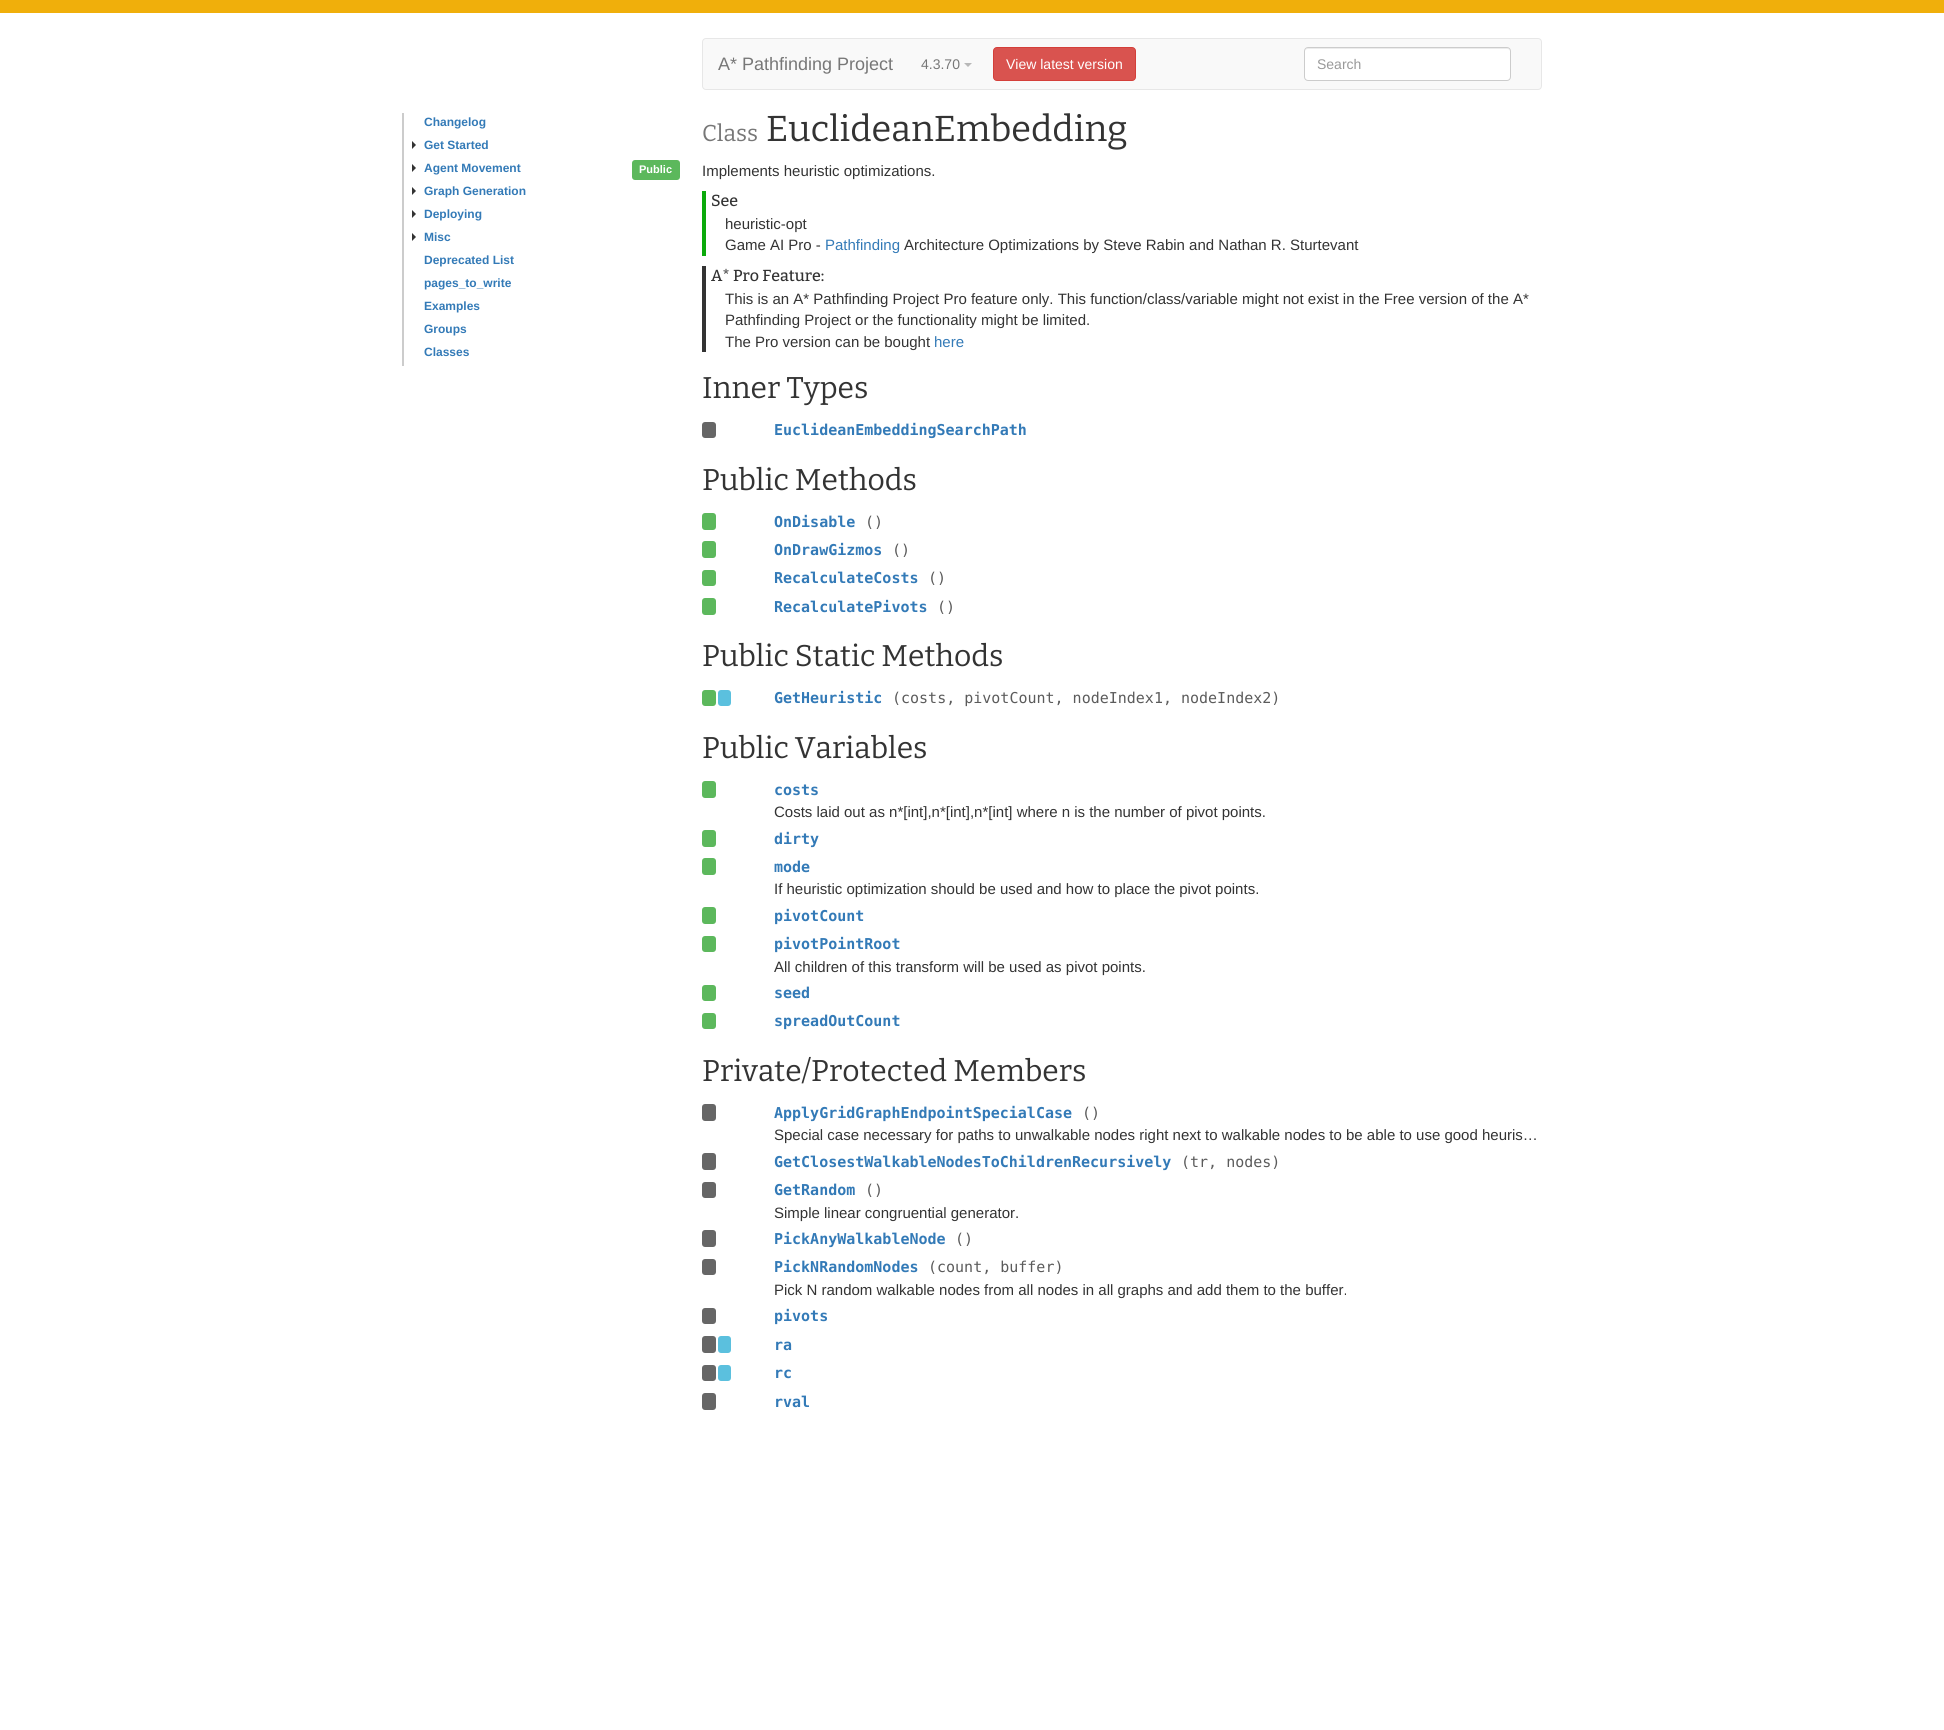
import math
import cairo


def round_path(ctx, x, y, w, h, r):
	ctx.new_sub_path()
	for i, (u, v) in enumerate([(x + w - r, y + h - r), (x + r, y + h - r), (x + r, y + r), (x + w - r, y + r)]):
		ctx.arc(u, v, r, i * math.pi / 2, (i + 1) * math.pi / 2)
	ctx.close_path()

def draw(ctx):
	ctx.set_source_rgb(1, 1, 1)
	ctx.paint()
	ctx.set_source_rgb(0.941, 0.686, 0.043)
	ctx.rectangle(0, 0, 1944, 13)
	ctx.fill()
	ctx.set_source_rgb(0.8, 0.8, 0.8)
	ctx.rectangle(402, 113, 2, 253)
	ctx.fill()
	ctx.select_font_face('Liberation Sans', cairo.FONT_SLANT_NORMAL, cairo.FONT_WEIGHT_BOLD)
	ctx.set_font_size(12)
	ctx.set_source_rgb(0.2, 0.478, 0.718)
	ctx.move_to(424, 126)
	ctx.show_text('Changelog')
	ctx.set_source_rgb(0.2, 0.2, 0.2)
	ctx.new_path()
	ctx.move_to(412, 149)
	ctx.line_to(412, 141)
	ctx.line_to(416, 145)
	ctx.close_path()
	ctx.fill()
	ctx.set_source_rgb(0.2, 0.478, 0.718)
	ctx.move_to(424, 149)
	ctx.show_text('Get Started')
	ctx.set_source_rgb(0.2, 0.2, 0.2)
	ctx.new_path()
	ctx.move_to(412, 172)
	ctx.line_to(412, 164)
	ctx.line_to(416, 168)
	ctx.close_path()
	ctx.fill()
	ctx.set_source_rgb(0.2, 0.478, 0.718)
	ctx.move_to(424, 172)
	ctx.show_text('Agent Movement')
	ctx.set_source_rgb(0.2, 0.2, 0.2)
	ctx.new_path()
	ctx.move_to(412, 195)
	ctx.line_to(412, 187)
	ctx.line_to(416, 191)
	ctx.close_path()
	ctx.fill()
	ctx.set_source_rgb(0.2, 0.478, 0.718)
	ctx.move_to(424, 195)
	ctx.show_text('Graph Generation')
	ctx.set_source_rgb(0.2, 0.2, 0.2)
	ctx.new_path()
	ctx.move_to(412, 218)
	ctx.line_to(412, 210)
	ctx.line_to(416, 214)
	ctx.close_path()
	ctx.fill()
	ctx.set_source_rgb(0.2, 0.478, 0.718)
	ctx.move_to(424, 218)
	ctx.show_text('Deploying')
	ctx.set_source_rgb(0.2, 0.2, 0.2)
	ctx.new_path()
	ctx.move_to(412, 241)
	ctx.line_to(412, 233)
	ctx.line_to(416, 237)
	ctx.close_path()
	ctx.fill()
	ctx.set_source_rgb(0.2, 0.478, 0.718)
	for x, y, s in [
		(424, 241, 'Misc'),
		(424, 264, 'Deprecated List'),
		(424, 287, 'pages_to_write'),
		(424, 310, 'Examples'),
		(424, 333, 'Groups'),
		(424, 356, 'Classes'),
	]:
		ctx.move_to(x, y)
		ctx.show_text(s)
	ctx.set_source_rgb(0.973, 0.973, 0.973)
	round_path(ctx, 702.5, 38.5, 839, 51, 3.5)
	ctx.fill_preserve()
	ctx.set_source_rgb(0.906, 0.906, 0.906)
	ctx.set_line_width(1)
	ctx.stroke()
	ctx.select_font_face('Liberation Sans')
	ctx.set_font_size(18)
	ctx.set_source_rgb(0.467, 0.467, 0.467)
	ctx.move_to(718, 70)
	ctx.show_text('A* Pathfinding Project')
	ctx.set_font_size(14)
	ctx.move_to(921, 69)
	ctx.show_text('4.3.70')
	ctx.set_source_rgb(0.722, 0.722, 0.722)
	ctx.new_path()
	ctx.move_to(964, 63)
	ctx.line_to(972, 63)
	ctx.line_to(968, 67)
	ctx.close_path()
	ctx.fill()
	ctx.set_source_rgb(0.851, 0.325, 0.31)
	round_path(ctx, 993.5, 47.5, 142, 33, 3.5)
	ctx.fill_preserve()
	ctx.set_source_rgb(0.831, 0.247, 0.227)
	ctx.stroke()
	ctx.set_source_rgb(1, 1, 1)
	ctx.move_to(1006, 69)
	ctx.show_text('View latest version')
	round_path(ctx, 1304, 47, 207, 34, 4)
	ctx.fill()
	ctx.set_source_rgb(0.925, 0.925, 0.925)
	ctx.new_path()
	ctx.move_to(1308, 49)
	ctx.line_to(1507, 49)
	ctx.curve_to(1509, 49, 1510, 50, 1510, 52)
	ctx.curve_to(1510, 50, 1509, 48, 1507, 48)
	ctx.line_to(1308, 48)
	ctx.curve_to(1306, 48, 1305, 50, 1305, 52)
	ctx.curve_to(1305, 50, 1306, 49, 1308, 49)
	ctx.close_path()
	ctx.fill()
	round_path(ctx, 1304.5, 47.5, 206, 33, 3.5)
	ctx.set_source_rgb(0.8, 0.8, 0.8)
	ctx.stroke()
	ctx.set_source_rgb(0.6, 0.6, 0.6)
	ctx.move_to(1317, 69)
	ctx.show_text('Search')
	ctx.select_font_face('Bitter')
	ctx.set_font_size(23)
	ctx.set_source_rgb(0.467, 0.467, 0.467)
	ctx.move_to(702, 141)
	ctx.show_text('Class')
	ctx.set_font_size(36)
	ctx.set_source_rgb(0.2, 0.2, 0.2)
	ctx.move_to(766, 141)
	ctx.show_text('EuclideanEmbedding')
	ctx.set_source_rgb(0.361, 0.722, 0.361)
	round_path(ctx, 632, 160, 48, 20, 3)
	ctx.fill()
	ctx.select_font_face('Liberation Sans', cairo.FONT_SLANT_NORMAL, cairo.FONT_WEIGHT_BOLD)
	ctx.set_font_size(11)
	ctx.set_source_rgb(1, 1, 1)
	ctx.move_to(639, 173)
	ctx.show_text('Public')
	ctx.select_font_face('Liberation Sans')
	ctx.set_font_size(15)
	ctx.set_source_rgb(0.2, 0.2, 0.2)
	ctx.move_to(702, 176)
	ctx.show_text('Implements heuristic optimizations.')
	ctx.set_source_rgb(0.043, 0.667, 0.043)
	ctx.rectangle(702, 191, 4, 65)
	ctx.fill()
	ctx.select_font_face('Bitter Medium')
	ctx.set_font_size(16)
	ctx.set_source_rgb(0.2, 0.2, 0.2)
	ctx.move_to(711, 206)
	ctx.show_text('See')
	ctx.select_font_face('Liberation Sans')
	ctx.set_font_size(15)
	ctx.move_to(725, 229)
	ctx.show_text('heuristic-opt')
	ctx.move_to(725, 250)
	ctx.show_text('Game AI Pro -')
	ctx.set_source_rgb(0.2, 0.478, 0.718)
	ctx.move_to(825, 250)
	ctx.show_text('Pathfinding')
	ctx.set_source_rgb(0.2, 0.2, 0.2)
	ctx.move_to(904, 250)
	ctx.show_text('Architecture Optimizations by Steve Rabin and Nathan R. Sturtevant')
	ctx.rectangle(702, 266, 4, 86)
	ctx.fill()
	ctx.select_font_face('Bitter Medium')
	ctx.set_font_size(16)
	ctx.move_to(711, 281)
	ctx.show_text('A* Pro Feature:')
	ctx.select_font_face('Liberation Sans')
	ctx.set_font_size(15)
	for x, y, s in [
		(725, 304, 'This is an A* Pathfinding Project Pro feature only. This function/class/variable might not exist in the Free version of the A*'),
		(725, 325, 'Pathfinding Project or the functionality might be limited.'),
		(725, 347, 'The Pro version can be bought'),
	]:
		ctx.move_to(x, y)
		ctx.show_text(s)
	ctx.set_source_rgb(0.2, 0.478, 0.718)
	ctx.move_to(934, 347)
	ctx.show_text('here')
	ctx.select_font_face('Bitter')
	ctx.set_font_size(30)
	ctx.set_source_rgb(0.2, 0.2, 0.2)
	ctx.move_to(702, 398)
	ctx.show_text('Inner Types')
	ctx.set_source_rgb(0.4, 0.4, 0.4)
	round_path(ctx, 702, 422, 14, 16, 3)
	ctx.fill()
	ctx.select_font_face('DejaVu Sans Mono', cairo.FONT_SLANT_NORMAL, cairo.FONT_WEIGHT_BOLD)
	ctx.set_font_size(15)
	ctx.set_source_rgb(0.2, 0.478, 0.718)
	ctx.move_to(774, 435)
	ctx.show_text('EuclideanEmbeddingSearchPath')
	ctx.select_font_face('Bitter')
	ctx.set_font_size(30)
	ctx.set_source_rgb(0.2, 0.2, 0.2)
	ctx.move_to(702, 490)
	ctx.show_text('Public Methods')
	ctx.set_source_rgb(0.361, 0.722, 0.361)
	round_path(ctx, 702, 513, 14, 17, 3)
	ctx.fill()
	ctx.select_font_face('DejaVu Sans Mono', cairo.FONT_SLANT_NORMAL, cairo.FONT_WEIGHT_BOLD)
	ctx.set_font_size(15)
	ctx.set_source_rgb(0.2, 0.478, 0.718)
	ctx.move_to(774, 527)
	ctx.show_text('OnDisable')
	ctx.select_font_face('DejaVu Sans Mono')
	ctx.set_source_rgb(0.357, 0.357, 0.357)
	ctx.move_to(865, 527)
	ctx.show_text('()')
	ctx.set_source_rgb(0.361, 0.722, 0.361)
	round_path(ctx, 702, 541, 14, 17, 3)
	ctx.fill()
	ctx.select_font_face('DejaVu Sans Mono', cairo.FONT_SLANT_NORMAL, cairo.FONT_WEIGHT_BOLD)
	ctx.set_source_rgb(0.2, 0.478, 0.718)
	ctx.move_to(774, 555)
	ctx.show_text('OnDrawGizmos')
	ctx.select_font_face('DejaVu Sans Mono')
	ctx.set_source_rgb(0.357, 0.357, 0.357)
	ctx.move_to(892, 555)
	ctx.show_text('()')
	ctx.set_source_rgb(0.361, 0.722, 0.361)
	round_path(ctx, 702, 570, 14, 16, 3)
	ctx.fill()
	ctx.select_font_face('DejaVu Sans Mono', cairo.FONT_SLANT_NORMAL, cairo.FONT_WEIGHT_BOLD)
	ctx.set_source_rgb(0.2, 0.478, 0.718)
	ctx.move_to(774, 583)
	ctx.show_text('RecalculateCosts')
	ctx.select_font_face('DejaVu Sans Mono')
	ctx.set_source_rgb(0.357, 0.357, 0.357)
	ctx.move_to(928, 583)
	ctx.show_text('()')
	ctx.set_source_rgb(0.361, 0.722, 0.361)
	round_path(ctx, 702, 598, 14, 17, 3)
	ctx.fill()
	ctx.select_font_face('DejaVu Sans Mono', cairo.FONT_SLANT_NORMAL, cairo.FONT_WEIGHT_BOLD)
	ctx.set_source_rgb(0.2, 0.478, 0.718)
	ctx.move_to(774, 612)
	ctx.show_text('RecalculatePivots')
	ctx.select_font_face('DejaVu Sans Mono')
	ctx.set_source_rgb(0.357, 0.357, 0.357)
	ctx.move_to(937, 612)
	ctx.show_text('()')
	ctx.select_font_face('Bitter')
	ctx.set_font_size(30)
	ctx.set_source_rgb(0.2, 0.2, 0.2)
	ctx.move_to(702, 666)
	ctx.show_text('Public Static Methods')
	ctx.set_source_rgb(0.361, 0.722, 0.361)
	round_path(ctx, 702, 690, 14, 16, 3)
	ctx.fill()
	ctx.set_source_rgb(0.357, 0.753, 0.871)
	round_path(ctx, 718, 690, 13, 16, 3)
	ctx.fill()
	ctx.select_font_face('DejaVu Sans Mono', cairo.FONT_SLANT_NORMAL, cairo.FONT_WEIGHT_BOLD)
	ctx.set_font_size(15)
	ctx.set_source_rgb(0.2, 0.478, 0.718)
	ctx.move_to(774, 703)
	ctx.show_text('GetHeuristic')
	ctx.select_font_face('DejaVu Sans Mono')
	ctx.set_source_rgb(0.357, 0.357, 0.357)
	ctx.move_to(892, 703)
	ctx.show_text('(costs, pivotCount, nodeIndex1, nodeIndex2)')
	ctx.select_font_face('Bitter')
	ctx.set_font_size(30)
	ctx.set_source_rgb(0.2, 0.2, 0.2)
	ctx.move_to(702, 758)
	ctx.show_text('Public Variables')
	ctx.set_source_rgb(0.361, 0.722, 0.361)
	round_path(ctx, 702, 781, 14, 17, 3)
	ctx.fill()
	ctx.select_font_face('DejaVu Sans Mono', cairo.FONT_SLANT_NORMAL, cairo.FONT_WEIGHT_BOLD)
	ctx.set_font_size(15)
	ctx.set_source_rgb(0.2, 0.478, 0.718)
	ctx.move_to(774, 795)
	ctx.show_text('costs')
	ctx.select_font_face('Liberation Sans')
	ctx.set_source_rgb(0.2, 0.2, 0.2)
	ctx.move_to(774, 817)
	ctx.show_text('Costs laid out as n*[int],n*[int],n*[int] where n is the number of pivot points.')
	ctx.set_source_rgb(0.361, 0.722, 0.361)
	round_path(ctx, 702, 830, 14, 17, 3)
	ctx.fill()
	ctx.select_font_face('DejaVu Sans Mono', cairo.FONT_SLANT_NORMAL, cairo.FONT_WEIGHT_BOLD)
	ctx.set_source_rgb(0.2, 0.478, 0.718)
	ctx.move_to(774, 844)
	ctx.show_text('dirty')
	ctx.set_source_rgb(0.361, 0.722, 0.361)
	round_path(ctx, 702, 858, 14, 17, 3)
	ctx.fill()
	ctx.set_source_rgb(0.2, 0.478, 0.718)
	ctx.move_to(774, 872)
	ctx.show_text('mode')
	ctx.select_font_face('Liberation Sans')
	ctx.set_source_rgb(0.2, 0.2, 0.2)
	ctx.move_to(774, 894)
	ctx.show_text('If heuristic optimization should be used and how to place the pivot points.')
	ctx.set_source_rgb(0.361, 0.722, 0.361)
	round_path(ctx, 702, 907, 14, 17, 3)
	ctx.fill()
	ctx.select_font_face('DejaVu Sans Mono', cairo.FONT_SLANT_NORMAL, cairo.FONT_WEIGHT_BOLD)
	ctx.set_source_rgb(0.2, 0.478, 0.718)
	ctx.move_to(774, 921)
	ctx.show_text('pivotCount')
	ctx.set_source_rgb(0.361, 0.722, 0.361)
	round_path(ctx, 702, 936, 14, 16, 3)
	ctx.fill()
	ctx.set_source_rgb(0.2, 0.478, 0.718)
	ctx.move_to(774, 949)
	ctx.show_text('pivotPointRoot')
	ctx.select_font_face('Liberation Sans')
	ctx.set_source_rgb(0.2, 0.2, 0.2)
	ctx.move_to(774, 972)
	ctx.show_text('All children of this transform will be used as pivot points.')
	ctx.set_source_rgb(0.361, 0.722, 0.361)
	round_path(ctx, 702, 985, 14, 16, 3)
	ctx.fill()
	ctx.select_font_face('DejaVu Sans Mono', cairo.FONT_SLANT_NORMAL, cairo.FONT_WEIGHT_BOLD)
	ctx.set_source_rgb(0.2, 0.478, 0.718)
	ctx.move_to(774, 998)
	ctx.show_text('seed')
	ctx.set_source_rgb(0.361, 0.722, 0.361)
	round_path(ctx, 702, 1013, 14, 16, 3)
	ctx.fill()
	ctx.set_source_rgb(0.2, 0.478, 0.718)
	ctx.move_to(774, 1026)
	ctx.show_text('spreadOutCount')
	ctx.select_font_face('Bitter')
	ctx.set_font_size(30)
	ctx.set_source_rgb(0.2, 0.2, 0.2)
	ctx.move_to(702, 1081)
	ctx.show_text('Private/Protected Members')
	ctx.set_source_rgb(0.4, 0.4, 0.4)
	round_path(ctx, 702, 1104, 14, 17, 3)
	ctx.fill()
	ctx.select_font_face('DejaVu Sans Mono', cairo.FONT_SLANT_NORMAL, cairo.FONT_WEIGHT_BOLD)
	ctx.set_font_size(15)
	ctx.set_source_rgb(0.2, 0.478, 0.718)
	ctx.move_to(774, 1118)
	ctx.show_text('ApplyGridGraphEndpointSpecialCase')
	ctx.select_font_face('DejaVu Sans Mono')
	ctx.set_source_rgb(0.357, 0.357, 0.357)
	ctx.move_to(1082, 1118)
	ctx.show_text('()')
	ctx.select_font_face('Liberation Sans')
	ctx.set_source_rgb(0.2, 0.2, 0.2)
	ctx.move_to(774, 1140)
	ctx.show_text('Special case necessary for paths to unwalkable nodes right next to walkable nodes to be able to use good heuris…')
	ctx.set_source_rgb(0.4, 0.4, 0.4)
	round_path(ctx, 702, 1153, 14, 17, 3)
	ctx.fill()
	ctx.select_font_face('DejaVu Sans Mono', cairo.FONT_SLANT_NORMAL, cairo.FONT_WEIGHT_BOLD)
	ctx.set_source_rgb(0.2, 0.478, 0.718)
	ctx.move_to(774, 1167)
	ctx.show_text('GetClosestWalkableNodesToChildrenRecursively')
	ctx.select_font_face('DejaVu Sans Mono')
	ctx.set_source_rgb(0.357, 0.357, 0.357)
	ctx.move_to(1181, 1167)
	ctx.show_text('(tr, nodes)')
	ctx.set_source_rgb(0.4, 0.4, 0.4)
	round_path(ctx, 702, 1182, 14, 16, 3)
	ctx.fill()
	ctx.select_font_face('DejaVu Sans Mono', cairo.FONT_SLANT_NORMAL, cairo.FONT_WEIGHT_BOLD)
	ctx.set_source_rgb(0.2, 0.478, 0.718)
	ctx.move_to(774, 1195)
	ctx.show_text('GetRandom')
	ctx.select_font_face('DejaVu Sans Mono')
	ctx.set_source_rgb(0.357, 0.357, 0.357)
	ctx.move_to(865, 1195)
	ctx.show_text('()')
	ctx.select_font_face('Liberation Sans')
	ctx.set_source_rgb(0.2, 0.2, 0.2)
	ctx.move_to(774, 1218)
	ctx.show_text('Simple linear congruential generator.')
	ctx.set_source_rgb(0.4, 0.4, 0.4)
	round_path(ctx, 702, 1230, 14, 17, 3)
	ctx.fill()
	ctx.select_font_face('DejaVu Sans Mono', cairo.FONT_SLANT_NORMAL, cairo.FONT_WEIGHT_BOLD)
	ctx.set_source_rgb(0.2, 0.478, 0.718)
	ctx.move_to(774, 1244)
	ctx.show_text('PickAnyWalkableNode')
	ctx.select_font_face('DejaVu Sans Mono')
	ctx.set_source_rgb(0.357, 0.357, 0.357)
	ctx.move_to(955, 1244)
	ctx.show_text('()')
	ctx.set_source_rgb(0.4, 0.4, 0.4)
	round_path(ctx, 702, 1259, 14, 16, 3)
	ctx.fill()
	ctx.select_font_face('DejaVu Sans Mono', cairo.FONT_SLANT_NORMAL, cairo.FONT_WEIGHT_BOLD)
	ctx.set_source_rgb(0.2, 0.478, 0.718)
	ctx.move_to(774, 1272)
	ctx.show_text('PickNRandomNodes')
	ctx.select_font_face('DejaVu Sans Mono')
	ctx.set_source_rgb(0.357, 0.357, 0.357)
	ctx.move_to(928, 1272)
	ctx.show_text('(count, buffer)')
	ctx.select_font_face('Liberation Sans')
	ctx.set_source_rgb(0.2, 0.2, 0.2)
	ctx.move_to(774, 1295)
	ctx.show_text('Pick N random walkable nodes from all nodes in all graphs and add them to the buffer.')
	ctx.set_source_rgb(0.4, 0.4, 0.4)
	round_path(ctx, 702, 1308, 14, 16, 3)
	ctx.fill()
	ctx.select_font_face('DejaVu Sans Mono', cairo.FONT_SLANT_NORMAL, cairo.FONT_WEIGHT_BOLD)
	ctx.set_source_rgb(0.2, 0.478, 0.718)
	ctx.move_to(774, 1321)
	ctx.show_text('pivots')
	ctx.set_source_rgb(0.4, 0.4, 0.4)
	round_path(ctx, 702, 1336, 14, 17, 3)
	ctx.fill()
	ctx.set_source_rgb(0.357, 0.753, 0.871)
	round_path(ctx, 718, 1336, 13, 17, 3)
	ctx.fill()
	ctx.set_source_rgb(0.2, 0.478, 0.718)
	ctx.move_to(774, 1350)
	ctx.show_text('ra')
	ctx.set_source_rgb(0.4, 0.4, 0.4)
	round_path(ctx, 702, 1365, 14, 16, 3)
	ctx.fill()
	ctx.set_source_rgb(0.357, 0.753, 0.871)
	round_path(ctx, 718, 1365, 13, 16, 3)
	ctx.fill()
	ctx.set_source_rgb(0.2, 0.478, 0.718)
	ctx.move_to(774, 1378)
	ctx.show_text('rc')
	ctx.set_source_rgb(0.4, 0.4, 0.4)
	round_path(ctx, 702, 1393, 14, 17, 3)
	ctx.fill()
	ctx.set_source_rgb(0.2, 0.478, 0.718)
	ctx.move_to(774, 1407)
	ctx.show_text('rval')


surface = cairo.ImageSurface(cairo.FORMAT_RGB24, 1944, 1730)
ctx = cairo.Context(surface)
options = cairo.FontOptions()
options.set_hint_metrics(cairo.HINT_METRICS_OFF)
options.set_hint_style(cairo.HINT_STYLE_NONE)
ctx.set_font_options(options)
ctx.set_miter_limit(4)
draw(ctx)
surface.write_to_png('image.png')
